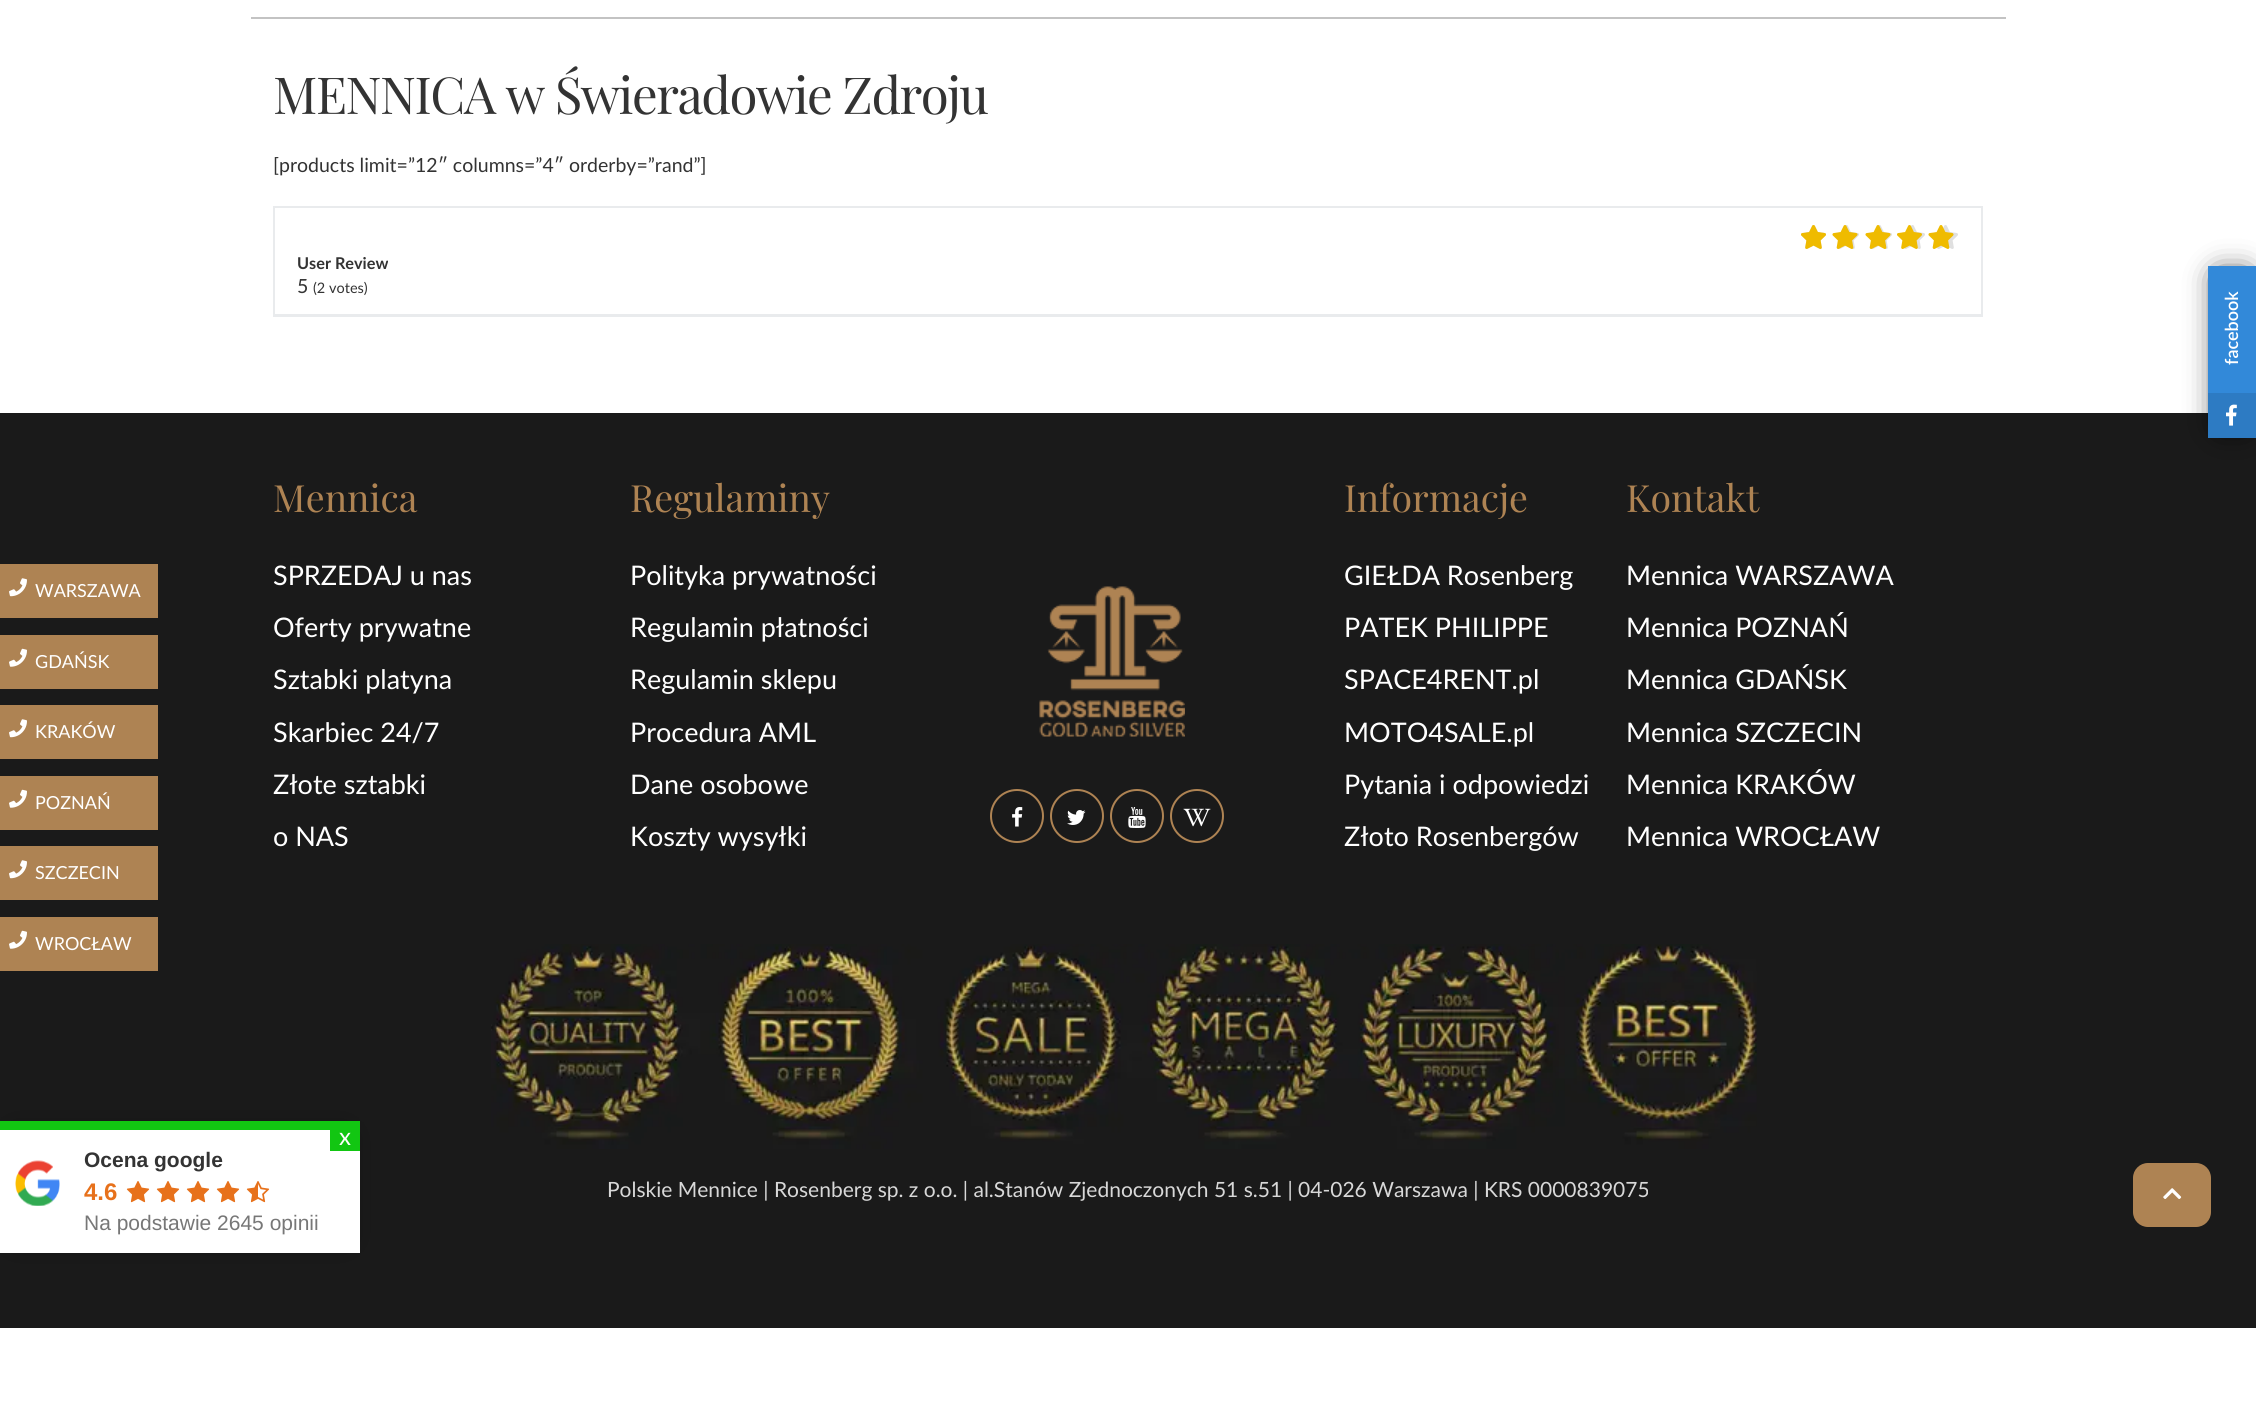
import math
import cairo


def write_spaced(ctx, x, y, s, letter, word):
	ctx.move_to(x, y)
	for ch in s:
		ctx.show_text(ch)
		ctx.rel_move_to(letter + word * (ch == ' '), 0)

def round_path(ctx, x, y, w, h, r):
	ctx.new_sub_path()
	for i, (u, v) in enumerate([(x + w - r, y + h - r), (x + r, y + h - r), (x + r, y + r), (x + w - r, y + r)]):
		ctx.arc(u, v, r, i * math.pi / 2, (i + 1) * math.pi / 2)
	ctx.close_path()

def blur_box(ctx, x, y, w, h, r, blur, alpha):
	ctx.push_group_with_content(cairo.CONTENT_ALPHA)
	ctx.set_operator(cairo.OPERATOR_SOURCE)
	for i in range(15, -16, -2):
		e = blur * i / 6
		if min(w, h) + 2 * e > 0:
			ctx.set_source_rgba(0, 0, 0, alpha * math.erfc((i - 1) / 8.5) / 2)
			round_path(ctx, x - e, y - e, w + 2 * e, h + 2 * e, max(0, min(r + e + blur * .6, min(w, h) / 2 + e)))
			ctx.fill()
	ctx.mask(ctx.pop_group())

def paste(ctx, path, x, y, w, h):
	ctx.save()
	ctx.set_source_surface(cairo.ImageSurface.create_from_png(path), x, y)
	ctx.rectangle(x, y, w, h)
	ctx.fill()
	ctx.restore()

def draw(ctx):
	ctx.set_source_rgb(1, 1, 1)
	ctx.paint()
	ctx.set_source_rgb(0.765, 0.765, 0.765)
	ctx.rectangle(251, 17, 1755, 2)
	ctx.fill()
	ctx.select_font_face('Playfair Display')
	ctx.set_font_size(51)
	ctx.set_source_rgb(0.2, 0.2, 0.2)
	write_spaced(ctx, 273, 114, 'MENNICA w Świeradowie Zdroju', -1.5, 0)
	ctx.select_font_face('Lato')
	ctx.set_font_size(19.5)
	ctx.move_to(273, 172)
	ctx.show_text('[products limit=”12″ columns=”4″ orderby=”rand”]')
	ctx.rectangle(274, 207, 1708, 109)
	ctx.set_source_rgb(0.914, 0.918, 0.929)
	ctx.stroke()
	ctx.rectangle(275, 314, 1707, 1)
	ctx.fill()
	paste(ctx, 'media/1.png', 1801, 225, 25, 24)
	paste(ctx, 'media/2.png', 1801, 225, 25, 24)
	paste(ctx, 'media/6.png', 1836, 225, 23, 24)
	paste(ctx, 'media/3.png', 1832, 225, 26, 24)
	paste(ctx, 'media/6.png', 1869, 225, 23, 24)
	paste(ctx, 'media/3.png', 1865, 225, 26, 24)
	paste(ctx, 'media/6.png', 1902, 225, 23, 24)
	paste(ctx, 'media/4.png', 1897, 225, 25, 24)
	paste(ctx, 'media/6.png', 1935, 225, 23, 24)
	paste(ctx, 'media/5.png', 1928, 225, 26, 24)
	ctx.select_font_face('Lato', cairo.FONT_SLANT_NORMAL, cairo.FONT_WEIGHT_BOLD)
	ctx.set_font_size(16.25)
	ctx.set_source_rgb(0.2, 0.2, 0.2)
	ctx.move_to(297, 269)
	ctx.show_text('User Review')
	ctx.select_font_face('Lato')
	ctx.set_font_size(19.5)
	ctx.move_to(297, 293)
	ctx.show_text('5')
	ctx.set_font_size(14.5)
	ctx.move_to(313, 293)
	ctx.show_text('(2 votes)')
	ctx.set_source_rgb(0.102, 0.102, 0.102)
	ctx.rectangle(0, 413, 2256, 915)
	ctx.fill()
	ctx.set_source_rgb(0.682, 0.514, 0.325)
	ctx.rectangle(0, 564, 158, 54)
	ctx.fill()
	paste(ctx, 'media/7.png', 9, 578, 18, 19)
	ctx.set_font_size(18)
	ctx.set_source_rgb(1, 1, 1)
	ctx.move_to(35, 597)
	ctx.show_text('WARSZAWA')
	ctx.select_font_face('Playfair Display')
	ctx.set_font_size(37.5)
	ctx.set_source_rgb(0.682, 0.514, 0.325)
	ctx.move_to(273, 512)
	ctx.show_text('Mennica')
	ctx.select_font_face('Lato')
	ctx.set_font_size(27)
	ctx.set_source_rgb(1, 1, 1)
	for x, y, s in [
		(273, 585, 'SPRZEDAJ u nas'),
		(273, 637, 'Oferty prywatne'),
		(273, 689, 'Sztabki platyna'),
		(273, 742, 'Skarbiec 24/7'),
		(273, 794, 'Złote sztabki'),
		(273, 846, 'o NAS'),
	]:
		ctx.move_to(x, y)
		ctx.show_text(s)
	ctx.select_font_face('Playfair Display')
	ctx.set_font_size(37.5)
	ctx.set_source_rgb(0.682, 0.514, 0.325)
	ctx.move_to(630, 512)
	ctx.show_text('Regulaminy')
	ctx.select_font_face('Lato')
	ctx.set_font_size(27)
	ctx.set_source_rgb(1, 1, 1)
	for x, y, s in [
		(630, 585, 'Polityka prywatności'),
		(630, 637, 'Regulamin płatności'),
		(630, 689, 'Regulamin sklepu'),
		(630, 742, 'Procedura AML'),
		(630, 794, 'Dane osobowe'),
		(630, 846, 'Koszty wysyłki'),
	]:
		ctx.move_to(x, y)
		ctx.show_text(s)
	paste(ctx, 'media/8.png', 1039, 586, 146, 151)
	ctx.arc(1017, 816, 26, 0, 2 * math.pi)
	ctx.set_source_rgb(0.682, 0.514, 0.325)
	ctx.stroke()
	paste(ctx, 'media/9.png', 1012, 807, 11, 20)
	ctx.arc(1077, 816, 26, 0, 2 * math.pi)
	ctx.stroke()
	paste(ctx, 'media/10.png', 1067, 810, 19, 15)
	ctx.arc(1137, 816, 26, 0, 2 * math.pi)
	ctx.stroke()
	paste(ctx, 'media/11.png', 1128, 807, 18, 21)
	ctx.arc(1197, 816, 26, 0, 2 * math.pi)
	ctx.stroke()
	paste(ctx, 'media/12.png', 1183, 808, 28, 19)
	ctx.select_font_face('Playfair Display')
	ctx.set_font_size(37.5)
	ctx.move_to(1344, 512)
	ctx.show_text('Informacje')
	ctx.select_font_face('Lato')
	ctx.set_font_size(27)
	ctx.set_source_rgb(1, 1, 1)
	for x, y, s in [
		(1344, 585, 'GIEŁDA Rosenberg'),
		(1344, 637, 'PATEK PHILIPPE'),
		(1344, 689, 'SPACE4RENT.pl'),
		(1344, 742, 'MOTO4SALE.pl'),
		(1344, 794, 'Pytania i odpowiedzi'),
		(1344, 846, 'Złoto Rosenbergów'),
	]:
		ctx.move_to(x, y)
		ctx.show_text(s)
	ctx.select_font_face('Playfair Display')
	ctx.set_font_size(37.5)
	ctx.set_source_rgb(0.682, 0.514, 0.325)
	ctx.move_to(1626, 512)
	ctx.show_text('Kontakt')
	ctx.select_font_face('Lato')
	ctx.set_font_size(27)
	ctx.set_source_rgb(1, 1, 1)
	for x, y, s in [
		(1626, 585, 'Mennica WARSZAWA'),
		(1626, 637, 'Mennica POZNAŃ'),
		(1626, 689, 'Mennica GDAŃSK'),
		(1626, 742, 'Mennica SZCZECIN'),
		(1626, 794, 'Mennica KRAKÓW'),
		(1626, 846, 'Mennica WROCŁAW'),
	]:
		ctx.move_to(x, y)
		ctx.show_text(s)
	paste(ctx, 'media/13.png', 491, 944, 1266, 205)
	ctx.set_font_size(21)
	ctx.set_source_rgb(0.847, 0.847, 0.847)
	ctx.move_to(607, 1197)
	ctx.show_text('Polskie Mennice | Rosenberg sp. z o.o. | al.Stanów Zjednoczonych 51 s.51 | 04-026 Warszawa | KRS 0000839075')
	ctx.set_source_rgb(0.682, 0.514, 0.325)
	ctx.rectangle(0, 635, 158, 54)
	ctx.fill()
	paste(ctx, 'media/14.png', 9, 648, 18, 19)
	ctx.set_font_size(18)
	ctx.set_source_rgb(1, 1, 1)
	ctx.move_to(35, 668)
	ctx.show_text('GDAŃSK')
	ctx.set_source_rgb(0.682, 0.514, 0.325)
	ctx.rectangle(0, 705, 158, 54)
	ctx.fill()
	paste(ctx, 'media/7.png', 9, 719, 18, 19)
	ctx.set_source_rgb(1, 1, 1)
	ctx.move_to(35, 738)
	ctx.show_text('KRAKÓW')
	ctx.set_source_rgb(0.682, 0.514, 0.325)
	ctx.rectangle(0, 776, 158, 54)
	ctx.fill()
	paste(ctx, 'media/14.png', 9, 789, 18, 19)
	ctx.set_source_rgb(1, 1, 1)
	ctx.move_to(35, 809)
	ctx.show_text('POZNAŃ')
	ctx.set_source_rgb(0.682, 0.514, 0.325)
	ctx.rectangle(0, 846, 158, 54)
	ctx.fill()
	paste(ctx, 'media/7.png', 9, 860, 18, 19)
	ctx.set_source_rgb(1, 1, 1)
	ctx.move_to(35, 879)
	ctx.show_text('SZCZECIN')
	ctx.set_source_rgb(0.682, 0.514, 0.325)
	ctx.rectangle(0, 917, 158, 54)
	ctx.fill()
	paste(ctx, 'media/14.png', 9, 930, 18, 19)
	ctx.set_source_rgb(1, 1, 1)
	ctx.move_to(35, 950)
	ctx.show_text('WROCŁAW')
	ctx.set_source_rgb(0, 0, 0)
	blur_box(ctx, 2219, 276, 27, 152, 0, 15, 1)
	ctx.set_source_rgb(0.196, 0.537, 0.851)
	ctx.rectangle(2208, 266, 48, 127)
	ctx.fill()
	ctx.select_font_face('Lato SemiBold')
	ctx.set_source_rgb(1, 1, 1)
	ctx.save()
	ctx.translate(2238, 365)
	ctx.rotate(-90 * math.pi / 180)
	ctx.move_to(0, 0)
	ctx.show_text('facebook')
	ctx.restore()
	ctx.set_source_rgb(0.176, 0.482, 0.765)
	ctx.rectangle(2208, 393, 48, 45)
	ctx.fill()
	paste(ctx, 'media/15.png', 2226, 404, 11, 22)
	ctx.set_source_rgb(0, 0, 0)
	blur_box(ctx, 15, 1136, 330, 102, 0, 12, 1)
	ctx.set_source_rgb(1, 1, 1)
	ctx.rectangle(0, 1130, 360, 123)
	ctx.fill()
	ctx.set_source_rgb(0.071, 0.776, 0.071)
	ctx.rectangle(0, 1121, 330, 9)
	ctx.rectangle(330, 1121, 30, 30)
	ctx.fill()
	ctx.select_font_face('Lato')
	ctx.set_font_size(24)
	ctx.set_source_rgb(1, 1, 1)
	ctx.move_to(339, 1145)
	ctx.show_text('x')
	paste(ctx, 'media/16.png', 15, 1160, 45, 46)
	ctx.select_font_face('Liberation Sans', cairo.FONT_SLANT_NORMAL, cairo.FONT_WEIGHT_BOLD)
	ctx.set_font_size(21)
	ctx.set_source_rgb(0.2, 0.2, 0.2)
	ctx.move_to(84, 1167)
	ctx.show_text('Ocena google')
	ctx.set_font_size(24)
	ctx.set_source_rgb(0.906, 0.443, 0.106)
	ctx.move_to(84, 1200)
	ctx.show_text('4.6')
	paste(ctx, 'media/17.png', 126, 1181, 24, 22)
	paste(ctx, 'media/17.png', 156, 1181, 24, 22)
	paste(ctx, 'media/17.png', 186, 1181, 24, 22)
	paste(ctx, 'media/17.png', 216, 1181, 24, 22)
	paste(ctx, 'media/18.png', 246, 1181, 24, 22)
	ctx.select_font_face('Liberation Sans')
	ctx.set_font_size(21)
	ctx.set_source_rgb(0.467, 0.467, 0.467)
	ctx.move_to(84, 1230)
	ctx.show_text('Na podstawie 2645 opinii')
	ctx.set_source_rgb(0.682, 0.514, 0.325)
	round_path(ctx, 2133, 1163, 78, 64, 15)
	ctx.fill()
	paste(ctx, 'media/19.png', 2163, 1188, 19, 11)


surface = cairo.ImageSurface(cairo.FORMAT_RGB24, 2256, 1410)
ctx = cairo.Context(surface)
options = cairo.FontOptions()
options.set_hint_metrics(cairo.HINT_METRICS_OFF)
options.set_hint_style(cairo.HINT_STYLE_NONE)
ctx.set_font_options(options)
ctx.set_miter_limit(4)
draw(ctx)
surface.write_to_png('image.png')
